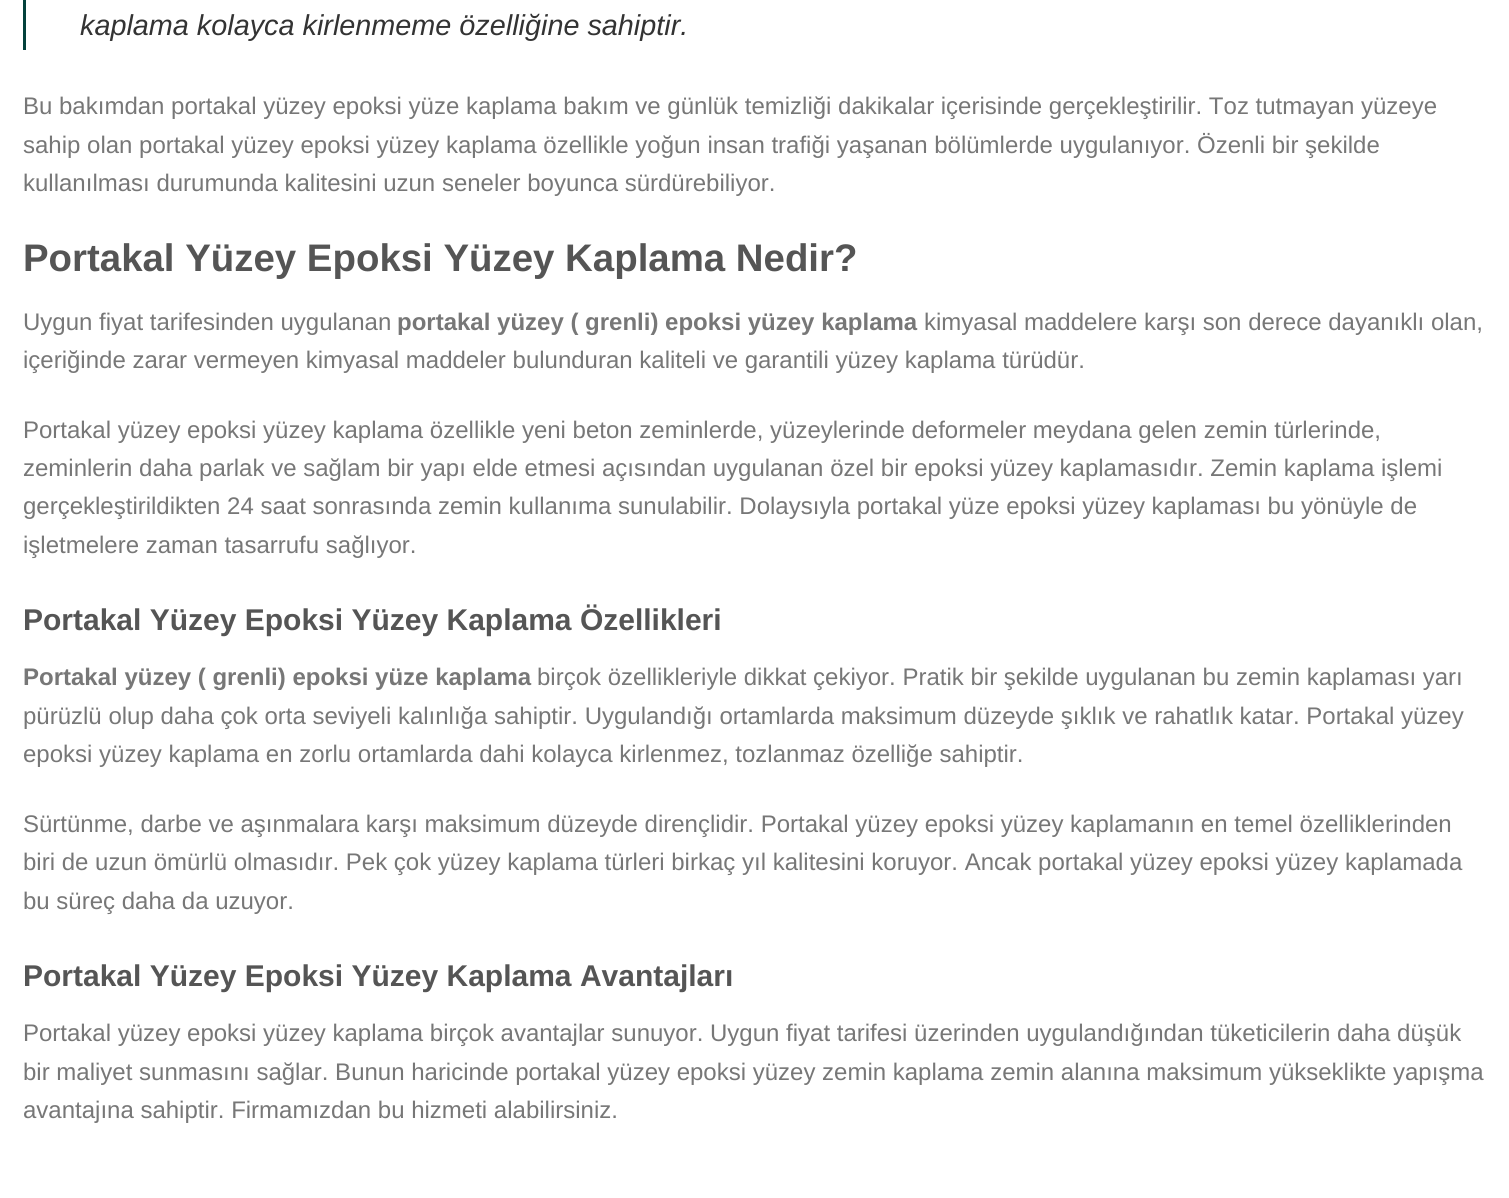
import math
import cairo


def draw(ctx):
	ctx.set_source_rgb(1, 1, 1)
	ctx.paint()
	ctx.set_source_rgb(0.012, 0.255, 0.235)
	ctx.rectangle(23, 0, 3, 50)
	ctx.fill()
	ctx.select_font_face('Liberation Sans', cairo.FONT_SLANT_ITALIC)
	ctx.set_font_size(28.8)
	ctx.set_source_rgb(0.2, 0.2, 0.2)
	ctx.move_to(80, 35)
	ctx.show_text('kaplama kolayca kirlenmeme özelliğine sahiptir.')
	ctx.select_font_face('Liberation Sans')
	ctx.set_font_size(24)
	ctx.set_source_rgb(0.467, 0.467, 0.467)
	for x, y, s in [
		(23, 114, 'Bu bakımdan portakal yüzey epoksi yüze kaplama bakım ve günlük temizliği dakikalar içerisinde gerçekleştirilir. Toz tutmayan yüzeye'),
		(23, 153, 'sahip olan portakal yüzey epoksi yüzey kaplama özellikle yoğun insan trafiği yaşanan bölümlerde uygulanıyor. Özenli bir şekilde'),
		(23, 191, 'kullanılması durumunda kalitesini uzun seneler boyunca sürdürebiliyor.'),
	]:
		ctx.move_to(x, y)
		ctx.show_text(s)
	ctx.select_font_face('Liberation Sans', cairo.FONT_SLANT_NORMAL, cairo.FONT_WEIGHT_BOLD)
	ctx.set_font_size(38.4)
	ctx.set_source_rgb(0.333, 0.333, 0.333)
	ctx.move_to(23, 271)
	ctx.show_text('Portakal Yüzey Epoksi Yüzey Kaplama Nedir?')
	ctx.select_font_face('Liberation Sans')
	ctx.set_font_size(24)
	ctx.set_source_rgb(0.467, 0.467, 0.467)
	ctx.move_to(23, 330)
	ctx.show_text('Uygun fiyat tarifesinden uygulanan')
	ctx.select_font_face('Liberation Sans', cairo.FONT_SLANT_NORMAL, cairo.FONT_WEIGHT_BOLD)
	ctx.move_to(397, 330)
	ctx.show_text('portakal yüzey ( grenli) epoksi yüzey kaplama')
	ctx.select_font_face('Liberation Sans')
	for x, y, s in [
		(924, 330, 'kimyasal maddelere karşı son derece dayanıklı olan,'),
		(23, 368, 'içeriğinde zarar vermeyen kimyasal maddeler bulunduran kaliteli ve garantili yüzey kaplama türüdür.'),
		(23, 438, 'Portakal yüzey epoksi yüzey kaplama özellikle yeni beton zeminlerde, yüzeylerinde deformeler meydana gelen zemin türlerinde,'),
		(23, 476, 'zeminlerin daha parlak ve sağlam bir yapı elde etmesi açısından uygulanan özel bir epoksi yüzey kaplamasıdır. Zemin kaplama işlemi'),
		(23, 514, 'gerçekleştirildikten 24 saat sonrasında zemin kullanıma sunulabilir. Dolaysıyla portakal yüze epoksi yüzey kaplaması bu yönüyle de'),
		(23, 553, 'işletmelere zaman tasarrufu sağlıyor.'),
	]:
		ctx.move_to(x, y)
		ctx.show_text(s)
	ctx.select_font_face('Liberation Sans', cairo.FONT_SLANT_NORMAL, cairo.FONT_WEIGHT_BOLD)
	ctx.set_font_size(30)
	ctx.set_source_rgb(0.333, 0.333, 0.333)
	ctx.move_to(23, 630)
	ctx.show_text('Portakal Yüzey Epoksi Yüzey Kaplama Özellikleri')
	ctx.set_font_size(24)
	ctx.set_source_rgb(0.467, 0.467, 0.467)
	ctx.move_to(23, 685)
	ctx.show_text('Portakal yüzey ( grenli) epoksi yüze kaplama')
	ctx.select_font_face('Liberation Sans')
	for x, y, s in [
		(537, 685, 'birçok özellikleriyle dikkat çekiyor. Pratik bir şekilde uygulanan bu zemin kaplaması yarı'),
		(23, 724, 'pürüzlü olup daha çok orta seviyeli kalınlığa sahiptir. Uygulandığı ortamlarda maksimum düzeyde şıklık ve rahatlık katar. Portakal yüzey'),
		(23, 762, 'epoksi yüzey kaplama en zorlu ortamlarda dahi kolayca kirlenmez, tozlanmaz özelliğe sahiptir.'),
		(23, 832, 'Sürtünme, darbe ve aşınmalara karşı maksimum düzeyde dirençlidir. Portakal yüzey epoksi yüzey kaplamanın en temel özelliklerinden'),
		(23, 870, 'biri de uzun ömürlü olmasıdır. Pek çok yüzey kaplama türleri birkaç yıl kalitesini koruyor. Ancak portakal yüzey epoksi yüzey kaplamada'),
		(23, 909, 'bu süreç daha da uzuyor.'),
	]:
		ctx.move_to(x, y)
		ctx.show_text(s)
	ctx.select_font_face('Liberation Sans', cairo.FONT_SLANT_NORMAL, cairo.FONT_WEIGHT_BOLD)
	ctx.set_font_size(30)
	ctx.set_source_rgb(0.333, 0.333, 0.333)
	ctx.move_to(23, 986)
	ctx.show_text('Portakal Yüzey Epoksi Yüzey Kaplama Avantajları')
	ctx.select_font_face('Liberation Sans')
	ctx.set_font_size(24)
	ctx.set_source_rgb(0.467, 0.467, 0.467)
	for x, y, s in [
		(23, 1041, 'Portakal yüzey epoksi yüzey kaplama birçok avantajlar sunuyor. Uygun fiyat tarifesi üzerinden uygulandığından tüketicilerin daha düşük'),
		(23, 1080, 'bir maliyet sunmasını sağlar. Bunun haricinde portakal yüzey epoksi yüzey zemin kaplama zemin alanına maksimum yükseklikte yapışma'),
		(23, 1118, 'avantajına sahiptir. Firmamızdan bu hizmeti alabilirsiniz.'),
	]:
		ctx.move_to(x, y)
		ctx.show_text(s)


surface = cairo.ImageSurface(cairo.FORMAT_RGB24, 1509, 1198)
ctx = cairo.Context(surface)
options = cairo.FontOptions()
options.set_hint_metrics(cairo.HINT_METRICS_OFF)
options.set_hint_style(cairo.HINT_STYLE_NONE)
ctx.set_font_options(options)
ctx.set_miter_limit(4)
draw(ctx)
surface.write_to_png('image.png')
